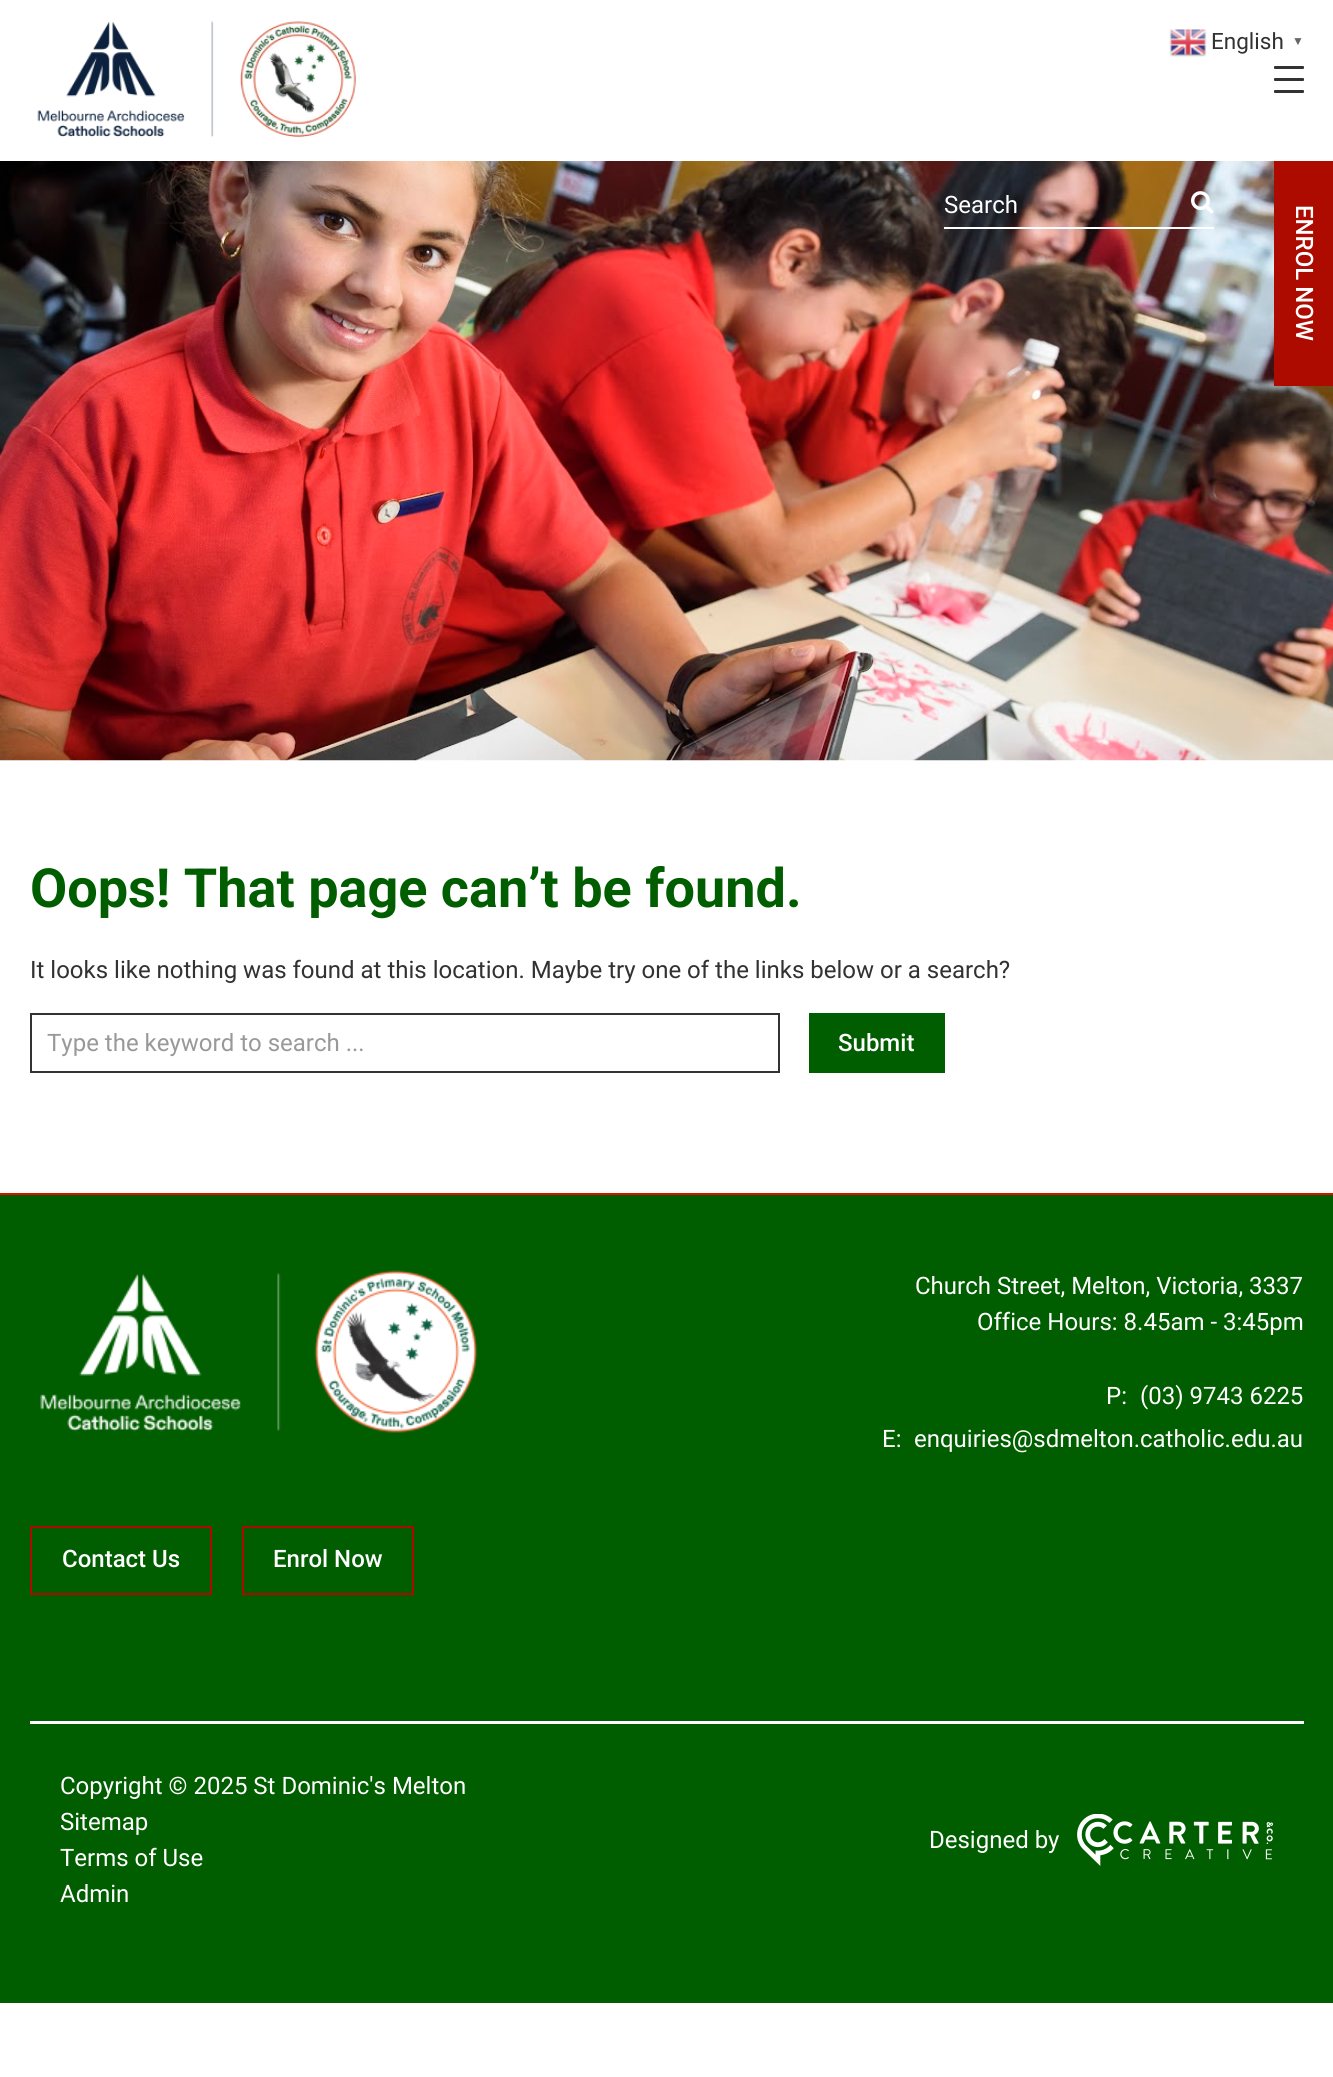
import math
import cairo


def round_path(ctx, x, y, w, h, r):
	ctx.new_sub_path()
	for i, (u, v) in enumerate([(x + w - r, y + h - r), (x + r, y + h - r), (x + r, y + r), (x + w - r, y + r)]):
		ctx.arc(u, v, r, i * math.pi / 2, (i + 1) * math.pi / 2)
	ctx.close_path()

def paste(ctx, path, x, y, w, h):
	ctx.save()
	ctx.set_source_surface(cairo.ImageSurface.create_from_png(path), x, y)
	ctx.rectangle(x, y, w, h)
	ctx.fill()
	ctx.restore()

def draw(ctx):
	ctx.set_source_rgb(1, 1, 1)
	ctx.paint()
	paste(ctx, 'media/1.png', 1169, 29, 38, 28)
	ctx.select_font_face('Roboto')
	ctx.set_font_size(22.5)
	ctx.set_source_rgb(0.196, 0.196, 0.196)
	ctx.move_to(1211, 49)
	ctx.show_text('English')
	ctx.select_font_face('Liberation Serif', cairo.FONT_SLANT_NORMAL, cairo.FONT_WEIGHT_BOLD)
	ctx.set_font_size(12)
	ctx.set_source_rgb(0.4, 0.4, 0.4)
	ctx.move_to(1292, 45)
	ctx.show_text('▼')
	paste(ctx, 'media/2.png', 37, 21, 319, 117)
	ctx.set_source_rgb(0.196, 0.196, 0.196)
	round_path(ctx, 1274, 78, 30, 3, 1)
	ctx.fill()
	round_path(ctx, 1274, 66, 30, 3, 1)
	ctx.fill()
	round_path(ctx, 1274, 90, 30, 3, 1)
	ctx.fill()
	paste(ctx, 'media/4.png', 0, 161, 1333, 600)
	ctx.set_source_rgb(1, 1, 1)
	ctx.rectangle(944, 227, 270, 2)
	ctx.fill()
	ctx.select_font_face('Roboto')
	ctx.set_font_size(24)
	ctx.move_to(944, 213)
	ctx.show_text('Search')
	paste(ctx, 'media/3.png', 1191, 191, 23, 23)
	ctx.set_source_rgb(0.678, 0.043, 0)
	ctx.rectangle(1274, 161, 59, 225)
	ctx.fill()
	ctx.select_font_face('Roboto Medium')
	ctx.set_source_rgb(1, 1, 1)
	ctx.save()
	ctx.translate(1296, 205)
	ctx.rotate(90 * math.pi / 180)
	ctx.move_to(0, 0)
	ctx.show_text('ENROL NOW')
	ctx.restore()
	ctx.select_font_face('Roboto', cairo.FONT_SLANT_NORMAL, cairo.FONT_WEIGHT_BOLD)
	ctx.set_font_size(54)
	ctx.set_source_rgb(0, 0.369, 0)
	ctx.move_to(30, 907)
	ctx.show_text('Oops! That page can’t be found.')
	ctx.select_font_face('Roboto')
	ctx.set_font_size(24)
	ctx.set_source_rgb(0.196, 0.196, 0.196)
	ctx.move_to(30, 978)
	ctx.show_text('It looks like nothing was found at this location. Maybe try one of the links below or a search?')
	ctx.rectangle(31, 1014, 748, 58)
	ctx.stroke()
	ctx.set_source_rgb(0.6, 0.6, 0.6)
	ctx.move_to(47, 1051)
	ctx.show_text('Type the keyword to search ...')
	ctx.set_source_rgb(0, 0.369, 0)
	ctx.rectangle(809, 1013, 136, 60)
	ctx.fill()
	ctx.select_font_face('Roboto Medium')
	ctx.set_source_rgb(1, 1, 1)
	ctx.move_to(838, 1051)
	ctx.show_text('Submit')
	ctx.set_source_rgb(0, 0.369, 0)
	ctx.rectangle(0, 1195, 1333, 808)
	ctx.fill()
	ctx.set_source_rgb(0.863, 0.055, 0)
	ctx.rectangle(0, 1193, 1333, 2)
	ctx.fill()
	ctx.set_source_rgb(1, 1, 1)
	ctx.rectangle(30, 1721, 1274, 3)
	ctx.fill()
	paste(ctx, 'media/5.png', 40, 1270, 438, 163)
	ctx.select_font_face('Roboto')
	for x, y, s in [
		(915, 1294, 'Church Street, Melton, Victoria, 3337'),
		(977, 1330, 'Office Hours: 8.45am - 3:45pm'),
		(1106, 1404, 'P:'),
		(1140, 1404, '(03) 9743 6225'),
		(882, 1447, 'E:'),
		(914, 1447, 'enquiries@sdmelton.catholic.edu.au'),
	]:
		ctx.move_to(x, y)
		ctx.show_text(s)
	ctx.rectangle(31, 1527, 180, 67)
	ctx.set_source_rgb(0.678, 0.043, 0)
	ctx.stroke()
	ctx.select_font_face('Roboto Medium')
	ctx.set_source_rgb(1, 1, 1)
	ctx.move_to(62, 1567)
	ctx.show_text('Contact Us')
	ctx.rectangle(243, 1527, 170, 67)
	ctx.set_source_rgb(0.678, 0.043, 0)
	ctx.stroke()
	ctx.set_source_rgb(1, 1, 1)
	ctx.move_to(273, 1567)
	ctx.show_text('Enrol Now')
	ctx.select_font_face('Roboto')
	for x, y, s in [
		(60, 1794, 'Copyright © 2025 St Dominic\'s Melton'),
		(60, 1830, 'Sitemap'),
		(60, 1866, 'Terms of Use'),
		(60, 1902, 'Admin'),
		(929, 1848, 'Designed by'),
	]:
		ctx.move_to(x, y)
		ctx.show_text(s)
	paste(ctx, 'media/6.png', 1077, 1814, 196, 52)


surface = cairo.ImageSurface(cairo.FORMAT_RGB24, 1333, 2077)
ctx = cairo.Context(surface)
options = cairo.FontOptions()
options.set_hint_metrics(cairo.HINT_METRICS_OFF)
options.set_hint_style(cairo.HINT_STYLE_NONE)
ctx.set_font_options(options)
ctx.set_miter_limit(4)
draw(ctx)
surface.write_to_png('image.png')
